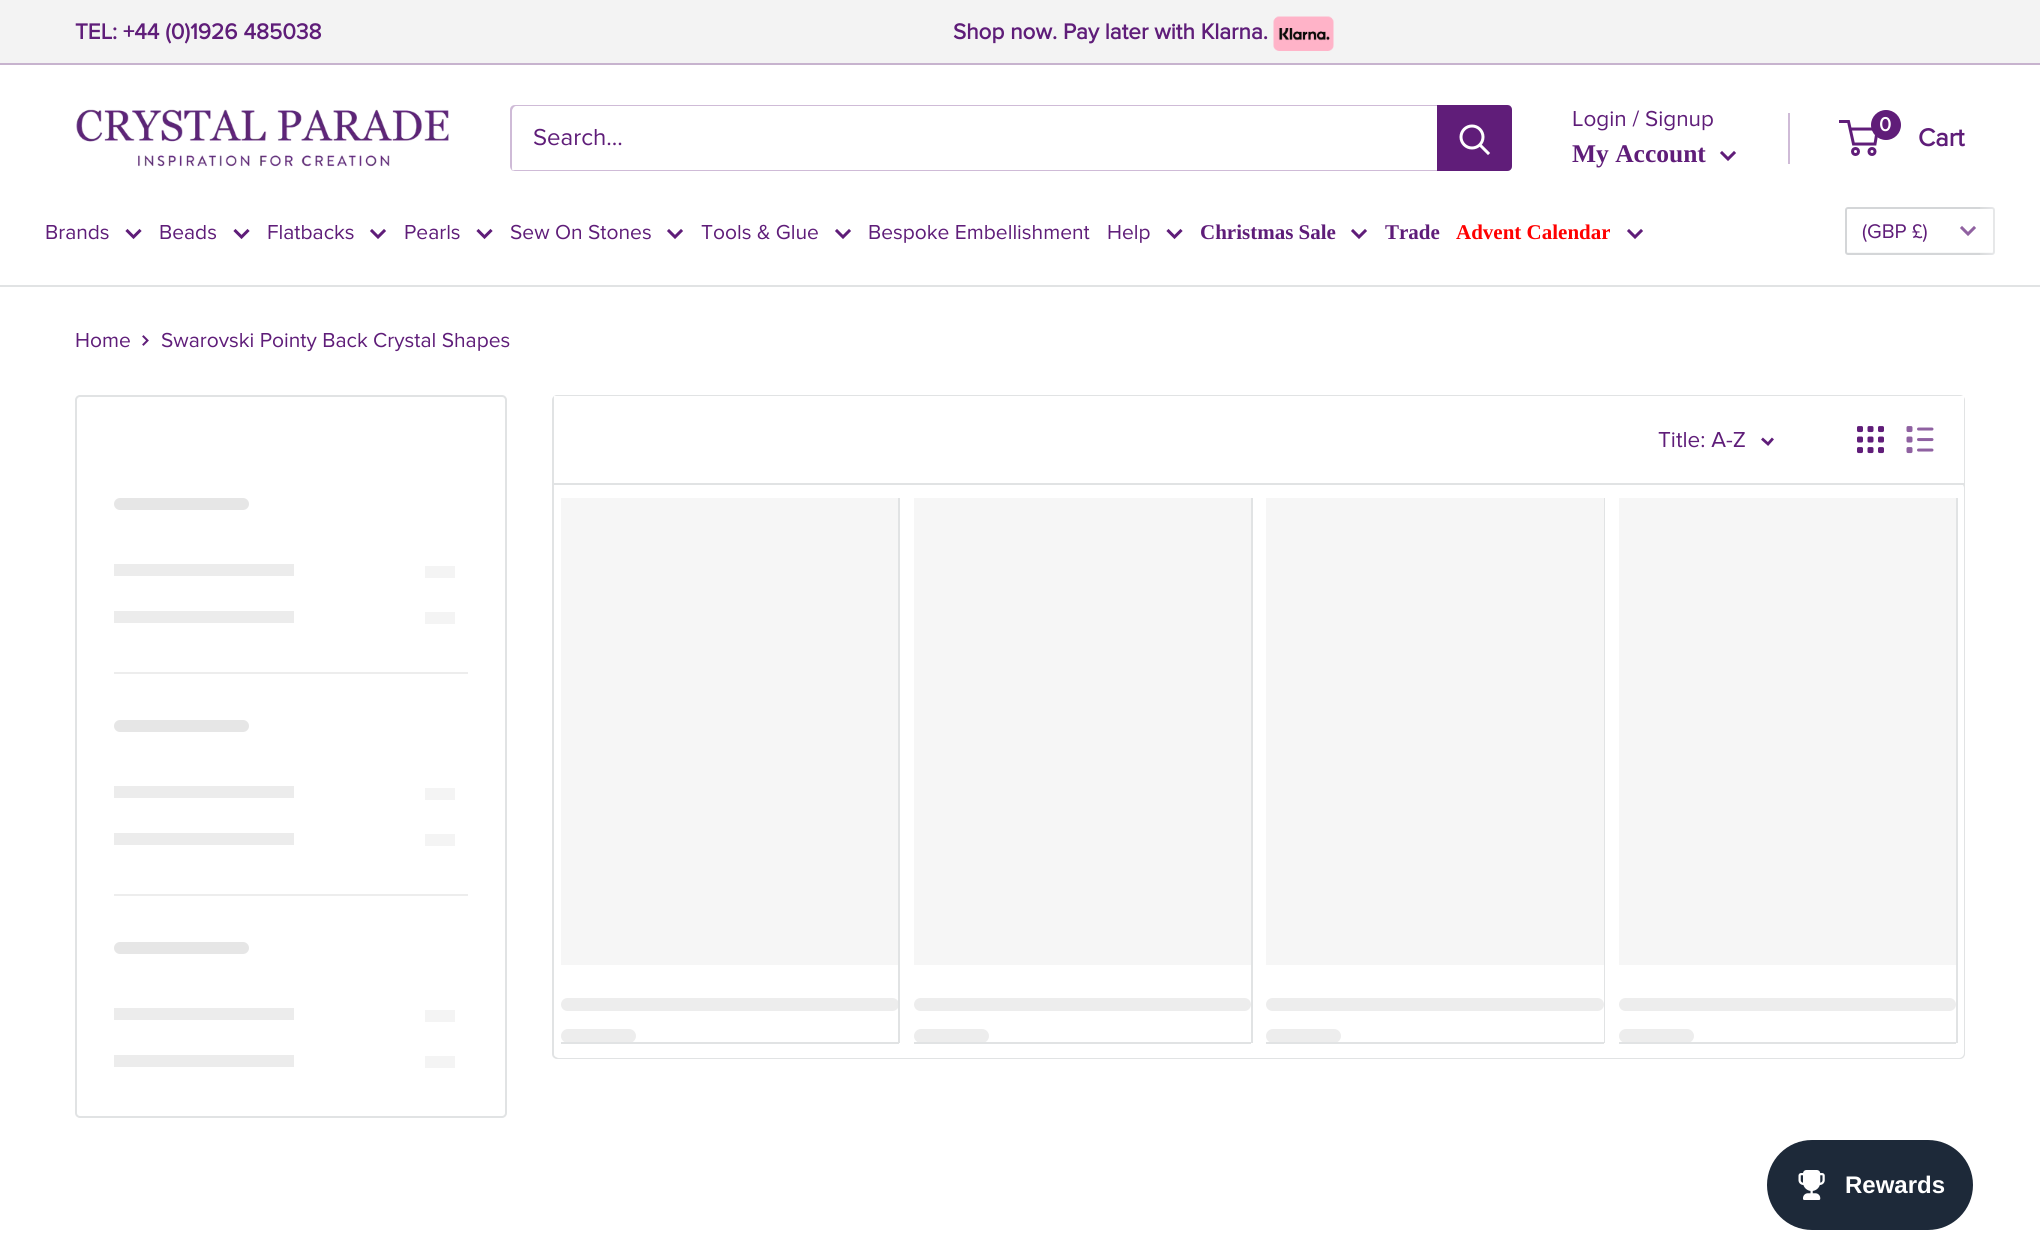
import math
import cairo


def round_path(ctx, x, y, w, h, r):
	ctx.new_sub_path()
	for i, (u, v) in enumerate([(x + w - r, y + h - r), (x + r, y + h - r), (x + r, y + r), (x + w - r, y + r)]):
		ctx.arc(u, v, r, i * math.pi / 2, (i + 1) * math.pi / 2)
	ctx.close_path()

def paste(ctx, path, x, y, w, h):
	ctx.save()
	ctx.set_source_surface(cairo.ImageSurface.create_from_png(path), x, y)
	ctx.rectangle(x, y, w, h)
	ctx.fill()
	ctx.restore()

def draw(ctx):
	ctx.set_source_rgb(1, 1, 1)
	ctx.paint()
	ctx.set_source_rgb(0.953, 0.953, 0.953)
	ctx.rectangle(0, 0, 2040, 63)
	ctx.fill()
	ctx.set_source_rgb(0.78, 0.702, 0.808)
	ctx.rectangle(0, 63, 2040, 2)
	ctx.fill()
	ctx.select_font_face('Proxima Nova', cairo.FONT_SLANT_NORMAL, cairo.FONT_WEIGHT_BOLD)
	ctx.set_font_size(22.5)
	ctx.set_source_rgb(0.373, 0.114, 0.475)
	ctx.move_to(75, 39)
	ctx.show_text('TEL: +44 (0)1926 485038')
	ctx.move_to(953, 39)
	ctx.show_text('Shop now. Pay later with Klarna.')
	paste(ctx, 'media/1.png', 1273, 16, 61, 35)
	paste(ctx, 'media/2.png', 76, 109, 373, 58)
	ctx.set_source_rgb(0.812, 0.733, 0.843)
	ctx.new_path()
	ctx.move_to(511, 170)
	ctx.curve_to(512, 170, 514, 171, 515, 171)
	ctx.line_to(1507, 171)
	ctx.curve_to(1510, 171, 1512, 169, 1512, 166)
	ctx.line_to(1512, 110)
	ctx.curve_to(1512, 108, 1511, 106, 1509, 105)
	ctx.curve_to(1510, 106, 1510, 107, 1510, 108)
	ctx.line_to(1510, 165)
	ctx.curve_to(1510, 167, 1508, 170, 1506, 170)
	ctx.line_to(513, 170)
	ctx.close_path()
	ctx.fill()
	ctx.new_path()
	ctx.move_to(516, 106)
	ctx.line_to(1509, 106)
	ctx.line_to(1511, 106)
	ctx.curve_to(1510, 106, 1508, 105, 1507, 105)
	ctx.line_to(515, 105)
	ctx.curve_to(512, 105, 510, 107, 510, 110)
	ctx.line_to(510, 166)
	ctx.curve_to(510, 168, 511, 170, 513, 171)
	ctx.curve_to(512, 170, 512, 169, 512, 168)
	ctx.line_to(512, 111)
	ctx.curve_to(512, 109, 514, 106, 516, 106)
	ctx.close_path()
	ctx.fill()
	ctx.select_font_face('Proxima Nova')
	ctx.set_font_size(24)
	ctx.set_source_rgb(0.373, 0.114, 0.475)
	ctx.move_to(533, 145)
	ctx.show_text('Search...')
	ctx.set_source_rgb(0.376, 0.114, 0.475)
	ctx.new_path()
	ctx.move_to(1437, 105)
	ctx.line_to(1507, 105)
	ctx.curve_to(1510, 105, 1512, 107, 1512, 110)
	ctx.line_to(1512, 166)
	ctx.curve_to(1512, 169, 1510, 171, 1507, 171)
	ctx.line_to(1437, 171)
	ctx.close_path()
	ctx.fill()
	ctx.new_path()
	ctx.move_to(1488, 153)
	ctx.line_to(1480.5, 145.5)
	ctx.set_source_rgb(1, 1, 1)
	ctx.set_line_width(3)
	ctx.set_line_cap(cairo.LINE_CAP_SQUARE)
	ctx.stroke()
	ctx.arc(1472, 137, 11, 0, 2 * math.pi)
	ctx.set_line_cap(cairo.LINE_CAP_BUTT)
	ctx.stroke()
	ctx.set_font_size(22.5)
	ctx.set_source_rgb(0.373, 0.114, 0.475)
	ctx.move_to(1572, 126)
	ctx.show_text('Login / Signup')
	ctx.set_source_rgb(0.812, 0.733, 0.843)
	ctx.rectangle(1788, 113, 2, 51)
	ctx.fill()
	ctx.select_font_face('Liberation Serif', cairo.FONT_SLANT_NORMAL, cairo.FONT_WEIGHT_BOLD)
	ctx.set_font_size(25.5)
	ctx.set_source_rgb(0.373, 0.114, 0.475)
	ctx.move_to(1572, 162)
	ctx.show_text('My Account')
	ctx.new_path()
	ctx.move_to(1734, 153)
	ctx.line_to(1728, 159)
	ctx.line_to(1722, 153)
	ctx.set_source_rgb(0.376, 0.114, 0.475)
	ctx.set_line_cap(cairo.LINE_CAP_SQUARE)
	ctx.stroke()
	ctx.arc(1855.5, 151.5, 3, 0, 2 * math.pi)
	ctx.set_line_cap(cairo.LINE_CAP_BUTT)
	ctx.stroke()
	ctx.arc(1872, 151.5, 3, 0, 2 * math.pi)
	ctx.stroke()
	ctx.new_path()
	ctx.move_to(1850, 129)
	ctx.line_to(1877.5, 129)
	ctx.line_to(1875, 144)
	ctx.line_to(1853.5, 144)
	ctx.line_to(1848.5, 121.5)
	ctx.line_to(1839, 121.5)
	ctx.stroke()
	ctx.arc(1886, 125, 15, 0, 2 * math.pi)
	ctx.fill()
	ctx.select_font_face('Proxima Nova', cairo.FONT_SLANT_NORMAL, cairo.FONT_WEIGHT_BOLD)
	ctx.set_font_size(20)
	ctx.set_source_rgb(1, 1, 1)
	ctx.move_to(1879, 131)
	ctx.show_text('0')
	ctx.set_font_size(25.5)
	ctx.set_source_rgb(0.373, 0.114, 0.475)
	ctx.move_to(1918, 146)
	ctx.show_text('Cart')
	ctx.set_source_rgb(0.882, 0.89, 0.894)
	ctx.rectangle(0, 285, 2040, 2)
	ctx.fill()
	ctx.select_font_face('Proxima Nova')
	ctx.set_font_size(21)
	ctx.set_source_rgb(0.373, 0.114, 0.475)
	ctx.move_to(45, 239)
	ctx.show_text('Brands')
	ctx.new_path()
	ctx.move_to(139.5, 231)
	ctx.line_to(133.5, 237)
	ctx.line_to(127.5, 231)
	ctx.set_line_cap(cairo.LINE_CAP_SQUARE)
	ctx.stroke()
	ctx.move_to(159, 239)
	ctx.show_text('Beads')
	ctx.new_path()
	ctx.move_to(247.5, 231)
	ctx.line_to(241.5, 237)
	ctx.line_to(235.5, 231)
	ctx.stroke()
	ctx.move_to(267, 239)
	ctx.show_text('Flatbacks')
	ctx.new_path()
	ctx.move_to(384, 231)
	ctx.line_to(378, 237)
	ctx.line_to(372, 231)
	ctx.stroke()
	ctx.move_to(404, 239)
	ctx.show_text('Pearls')
	ctx.new_path()
	ctx.move_to(490.5, 231)
	ctx.line_to(484.5, 237)
	ctx.line_to(478.5, 231)
	ctx.stroke()
	ctx.move_to(510, 239)
	ctx.show_text('Sew On Stones')
	ctx.new_path()
	ctx.move_to(681, 231)
	ctx.line_to(675, 237)
	ctx.line_to(669, 231)
	ctx.stroke()
	ctx.move_to(701, 239)
	ctx.show_text('Tools & Glue')
	ctx.new_path()
	ctx.move_to(849, 231)
	ctx.line_to(843, 237)
	ctx.line_to(837, 231)
	ctx.stroke()
	ctx.move_to(868, 239)
	ctx.show_text('Bespoke Embellishment')
	ctx.move_to(1107, 239)
	ctx.show_text('Help')
	ctx.new_path()
	ctx.move_to(1180.5, 231)
	ctx.line_to(1174.5, 237)
	ctx.line_to(1168.5, 231)
	ctx.stroke()
	ctx.select_font_face('Liberation Serif', cairo.FONT_SLANT_NORMAL, cairo.FONT_WEIGHT_BOLD)
	ctx.move_to(1200, 239)
	ctx.show_text('Christmas Sale')
	ctx.new_path()
	ctx.move_to(1365, 231)
	ctx.line_to(1359, 237)
	ctx.line_to(1353, 231)
	ctx.stroke()
	ctx.move_to(1385, 239)
	ctx.show_text('Trade')
	ctx.set_source_rgb(1, 0, 0)
	ctx.move_to(1456, 239)
	ctx.show_text('Advent Calendar')
	ctx.new_path()
	ctx.move_to(1641, 231)
	ctx.line_to(1635, 237)
	ctx.line_to(1629, 231)
	ctx.set_source_rgb(0.373, 0.114, 0.475)
	ctx.stroke()
	ctx.set_source_rgb(0.965, 0.969, 0.969)
	ctx.new_path()
	ctx.move_to(1847, 252)
	ctx.curve_to(1847, 253, 1848, 254, 1848, 254)
	ctx.line_to(1992, 254)
	ctx.curve_to(1993, 254, 1994, 253, 1994, 252)
	ctx.line_to(1994, 250)
	ctx.curve_to(1994, 251, 1993, 252, 1992, 252)
	ctx.close_path()
	ctx.fill()
	round_path(ctx, 1846, 208, 148, 46, 2)
	ctx.set_source_rgb(0.831, 0.839, 0.847)
	ctx.set_line_width(2)
	ctx.set_line_cap(cairo.LINE_CAP_BUTT)
	ctx.stroke()
	ctx.select_font_face('Proxima Nova')
	ctx.set_font_size(20.5)
	ctx.set_source_rgb(0.373, 0.114, 0.475)
	ctx.move_to(1862, 238)
	ctx.show_text('(GBP £)')
	ctx.new_path()
	ctx.move_to(1974, 228)
	ctx.line_to(1968, 234)
	ctx.line_to(1962, 228)
	ctx.set_source_rgb(0.565, 0.38, 0.631)
	ctx.set_line_width(3)
	ctx.set_line_cap(cairo.LINE_CAP_SQUARE)
	ctx.stroke()
	gradient = cairo.LinearGradient(1980, 233, 2040, 233)
	gradient.add_color_stop_rgba(0, 1, 1, 1, 0.1)
	gradient.add_color_stop_rgba(0.35, 1, 1, 1, 0.6)
	gradient.add_color_stop_rgba(1, 1, 1, 1, 1)
	ctx.set_source(gradient)
	ctx.rectangle(1980, 207, 15, 48)
	ctx.fill()
	ctx.set_font_size(21)
	ctx.set_source_rgb(0.373, 0.114, 0.475)
	ctx.move_to(75, 347)
	ctx.show_text('Home')
	ctx.new_path()
	ctx.move_to(143.5, 336.5)
	ctx.line_to(147.5, 340.5)
	ctx.line_to(143.5, 344.5)
	ctx.set_line_width(2)
	ctx.stroke()
	ctx.move_to(161, 347)
	ctx.show_text('Swarovski Pointy Back Crystal Shapes')
	round_path(ctx, 76, 396, 430, 721, 4)
	ctx.set_source_rgb(0.882, 0.89, 0.894)
	ctx.set_line_cap(cairo.LINE_CAP_BUTT)
	ctx.stroke()
	ctx.set_source_rgb(0.929, 0.929, 0.929)
	ctx.rectangle(114, 672, 354, 2)
	ctx.fill()
	ctx.set_source_rgb(0.902, 0.902, 0.902)
	round_path(ctx, 114, 498, 135, 12, 6)
	ctx.fill()
	ctx.set_source_rgb(0.925, 0.925, 0.925)
	ctx.rectangle(114, 564, 180, 12)
	ctx.fill()
	ctx.set_source_rgb(0.957, 0.957, 0.957)
	ctx.rectangle(425, 566, 30, 12)
	ctx.fill()
	ctx.set_source_rgb(0.925, 0.925, 0.925)
	ctx.rectangle(114, 611, 180, 12)
	ctx.fill()
	ctx.set_source_rgb(0.957, 0.957, 0.957)
	ctx.rectangle(425, 612, 30, 12)
	ctx.fill()
	ctx.set_source_rgb(0.929, 0.929, 0.929)
	ctx.rectangle(114, 894, 354, 2)
	ctx.fill()
	ctx.set_source_rgb(0.902, 0.902, 0.902)
	round_path(ctx, 114, 720, 135, 12, 6)
	ctx.fill()
	ctx.set_source_rgb(0.925, 0.925, 0.925)
	ctx.rectangle(114, 786, 180, 12)
	ctx.fill()
	ctx.set_source_rgb(0.957, 0.957, 0.957)
	ctx.rectangle(425, 788, 30, 12)
	ctx.fill()
	ctx.set_source_rgb(0.925, 0.925, 0.925)
	ctx.rectangle(114, 833, 180, 12)
	ctx.fill()
	ctx.set_source_rgb(0.957, 0.957, 0.957)
	ctx.rectangle(425, 834, 30, 12)
	ctx.fill()
	ctx.set_source_rgb(0.902, 0.902, 0.902)
	round_path(ctx, 114, 942, 135, 12, 6)
	ctx.fill()
	ctx.set_source_rgb(0.925, 0.925, 0.925)
	ctx.rectangle(114, 1008, 180, 12)
	ctx.fill()
	ctx.set_source_rgb(0.957, 0.957, 0.957)
	ctx.rectangle(425, 1010, 30, 12)
	ctx.fill()
	ctx.set_source_rgb(0.925, 0.925, 0.925)
	ctx.rectangle(114, 1055, 180, 12)
	ctx.fill()
	ctx.set_source_rgb(0.957, 0.957, 0.957)
	ctx.rectangle(425, 1056, 30, 12)
	ctx.fill()
	round_path(ctx, 553, 396, 1411, 662, 4)
	ctx.set_source_rgb(0.882, 0.89, 0.894)
	ctx.stroke()
	ctx.set_source_rgb(1, 1, 1)
	round_path(ctx, 554, 483, 1410, 575, 5)
	ctx.fill()
	ctx.set_source_rgb(0.882, 0.89, 0.894)
	ctx.new_path()
	ctx.move_to(554, 483)
	ctx.line_to(554, 485)
	ctx.line_to(1964, 485)
	ctx.line_to(1964, 398)
	ctx.line_to(1964, 483)
	ctx.close_path()
	ctx.fill()
	ctx.set_source_rgb(1, 1, 1)
	ctx.rectangle(554, 396, 1410, 87)
	ctx.fill()
	ctx.set_font_size(22.5)
	ctx.set_source_rgb(0.373, 0.114, 0.475)
	ctx.move_to(1658, 447)
	ctx.show_text('Title: A-Z')
	ctx.new_path()
	ctx.move_to(1772, 439.5)
	ctx.line_to(1768, 444)
	ctx.line_to(1763, 439.5)
	ctx.set_line_width(2.8)
	ctx.set_line_cap(cairo.LINE_CAP_SQUARE)
	ctx.stroke()
	paste(ctx, 'media/3.png', 1857, 426, 27, 28)
	paste(ctx, 'media/4.png', 1906, 426, 28, 28)
	ctx.set_source_rgb(0.961, 0.961, 0.961)
	ctx.rectangle(561, 498, 337, 467)
	ctx.fill()
	ctx.set_source_rgb(0.929, 0.929, 0.929)
	round_path(ctx, 561, 998, 338, 13, 6.5)
	ctx.fill()
	round_path(ctx, 561, 1029, 75, 14, 7)
	ctx.fill()
	ctx.set_source_rgb(0.882, 0.89, 0.894)
	ctx.new_path()
	ctx.move_to(561, 1042)
	ctx.line_to(561, 1044)
	ctx.line_to(899, 1044)
	ctx.line_to(899, 500)
	ctx.line_to(898, 500)
	ctx.line_to(898, 1042)
	ctx.close_path()
	ctx.fill()
	ctx.new_path()
	ctx.move_to(563, 1042)
	ctx.line_to(563, 1043)
	ctx.line_to(900, 1043)
	ctx.line_to(900, 498)
	ctx.line_to(898, 498)
	ctx.line_to(898, 1042)
	ctx.close_path()
	ctx.fill()
	ctx.set_source_rgb(0.961, 0.961, 0.961)
	ctx.rectangle(914, 498, 337, 467)
	ctx.fill()
	ctx.set_source_rgb(0.929, 0.929, 0.929)
	round_path(ctx, 914, 998, 337, 13, 6.5)
	ctx.fill()
	round_path(ctx, 914, 1029, 75, 14, 7)
	ctx.fill()
	ctx.set_source_rgb(0.882, 0.89, 0.894)
	ctx.rectangle(914, 1042, 337, 2)
	ctx.fill()
	ctx.new_path()
	ctx.move_to(915, 1042)
	ctx.line_to(915, 1043)
	ctx.line_to(1253, 1043)
	ctx.line_to(1253, 498)
	ctx.line_to(1251, 498)
	ctx.line_to(1251, 1042)
	ctx.close_path()
	ctx.fill()
	ctx.set_source_rgb(0.961, 0.961, 0.961)
	ctx.rectangle(1266, 498, 338, 467)
	ctx.fill()
	ctx.set_source_rgb(0.929, 0.929, 0.929)
	round_path(ctx, 1266, 998, 338, 13, 6.5)
	ctx.fill()
	round_path(ctx, 1266, 1029, 75, 14, 7)
	ctx.fill()
	ctx.set_source_rgb(0.882, 0.89, 0.894)
	ctx.new_path()
	ctx.move_to(1266, 1042)
	ctx.line_to(1266, 1044)
	ctx.line_to(1604, 1044)
	ctx.line_to(1604, 500)
	ctx.line_to(1604, 1042)
	ctx.close_path()
	ctx.fill()
	ctx.new_path()
	ctx.move_to(1268, 1042)
	ctx.line_to(1268, 1043)
	ctx.line_to(1605, 1043)
	ctx.line_to(1605, 498)
	ctx.line_to(1604, 498)
	ctx.line_to(1604, 1042)
	ctx.close_path()
	ctx.fill()
	ctx.set_source_rgb(0.961, 0.961, 0.961)
	ctx.rectangle(1619, 498, 337, 467)
	ctx.fill()
	ctx.set_source_rgb(0.929, 0.929, 0.929)
	round_path(ctx, 1619, 998, 337, 13, 6.5)
	ctx.fill()
	round_path(ctx, 1619, 1029, 75, 14, 7)
	ctx.fill()
	ctx.set_source_rgb(0.882, 0.89, 0.894)
	ctx.rectangle(1619, 1042, 337, 2)
	ctx.fill()
	ctx.new_path()
	ctx.move_to(1620, 1042)
	ctx.line_to(1620, 1043)
	ctx.line_to(1958, 1043)
	ctx.line_to(1958, 498)
	ctx.line_to(1956, 498)
	ctx.line_to(1956, 1042)
	ctx.close_path()
	ctx.fill()
	ctx.set_source_rgb(0.114, 0.161, 0.224)
	round_path(ctx, 1767, 1140, 206, 90, 45)
	ctx.fill()
	paste(ctx, 'media/5.png', 1798, 1170, 27, 30)
	ctx.select_font_face('Liberation Sans', cairo.FONT_SLANT_NORMAL, cairo.FONT_WEIGHT_BOLD)
	ctx.set_font_size(24)
	ctx.set_source_rgb(1, 1, 1)
	ctx.move_to(1845, 1193)
	ctx.show_text('Rewards')


surface = cairo.ImageSurface(cairo.FORMAT_RGB24, 2040, 1260)
ctx = cairo.Context(surface)
options = cairo.FontOptions()
options.set_hint_metrics(cairo.HINT_METRICS_OFF)
options.set_hint_style(cairo.HINT_STYLE_NONE)
ctx.set_font_options(options)
ctx.set_miter_limit(4)
draw(ctx)
surface.write_to_png('image.png')
